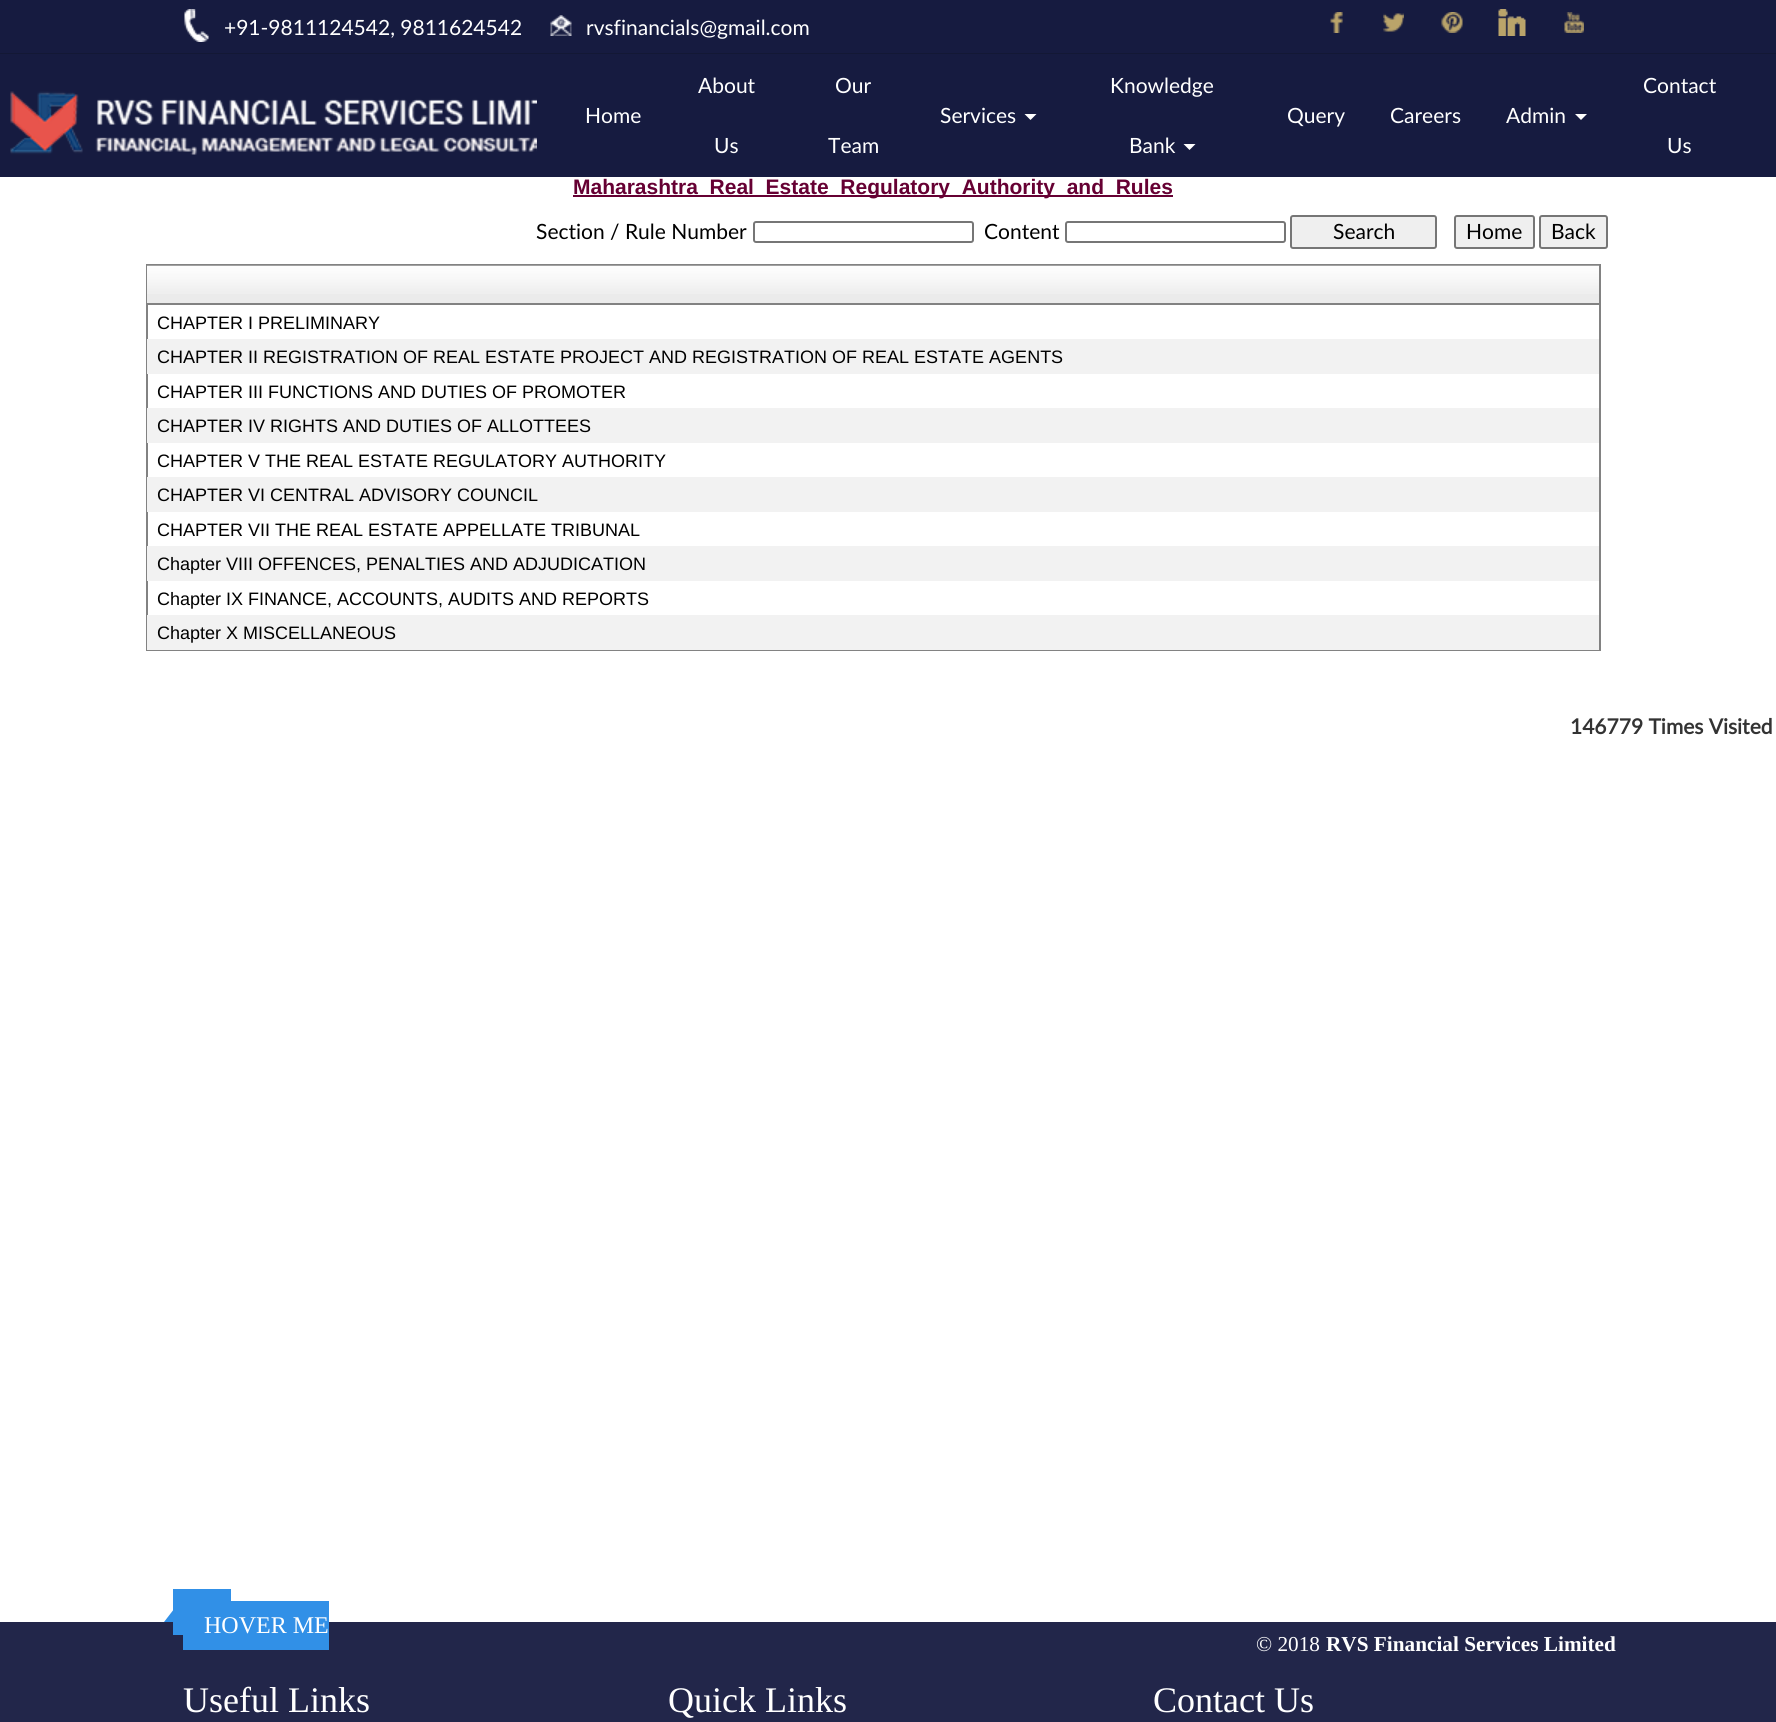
import math
import cairo


def round_path(ctx, x, y, w, h, r):
	ctx.new_sub_path()
	for i, (u, v) in enumerate([(x + w - r, y + h - r), (x + r, y + h - r), (x + r, y + r), (x + w - r, y + r)]):
		ctx.arc(u, v, r, i * math.pi / 2, (i + 1) * math.pi / 2)
	ctx.close_path()

def paste(ctx, path, x, y, w, h):
	ctx.save()
	ctx.set_source_surface(cairo.ImageSurface.create_from_png(path), x, y)
	ctx.rectangle(x, y, w, h)
	ctx.fill()
	ctx.restore()

def draw(ctx):
	ctx.set_source_rgb(1, 1, 1)
	ctx.paint()
	ctx.set_source_rgb(0.086, 0.106, 0.251)
	ctx.rectangle(0, 0, 1776, 53)
	ctx.fill()
	ctx.set_source_rgb(0.078, 0.094, 0.208)
	ctx.rectangle(0, 53, 1776, 1)
	ctx.fill()
	paste(ctx, 'media/1.png', 184, 9, 25, 33)
	ctx.select_font_face('Lato')
	ctx.set_font_size(21)
	ctx.set_source_rgb(1, 1, 1)
	ctx.move_to(224, 35)
	ctx.show_text('+91-9811124542, 9811624542')
	paste(ctx, 'media/2.png', 550, 15, 22, 21)
	ctx.move_to(586, 35)
	ctx.show_text('rvsfinancials@gmail.com')
	paste(ctx, 'media/3.png', 1330, 12, 13, 21)
	paste(ctx, 'media/4.png', 1383, 13, 21, 19)
	paste(ctx, 'media/5.png', 1441, 12, 22, 21)
	paste(ctx, 'media/6.png', 1498, 9, 28, 27)
	paste(ctx, 'media/7.png', 1564, 12, 20, 21)
	ctx.set_source_rgb(0.086, 0.106, 0.251)
	ctx.rectangle(0, 54, 1776, 123)
	ctx.fill()
	paste(ctx, 'media/8.png', 10, 91, 527, 64)
	ctx.set_source_rgb(1, 1, 1)
	for x, y, s in [
		(585, 123, 'Home'),
		(698, 93, 'About'),
		(714, 153, 'Us'),
		(835, 93, 'Our'),
		(828, 153, 'Team'),
		(940, 123, 'Services'),
	]:
		ctx.move_to(x, y)
		ctx.show_text(s)
	ctx.new_path()
	ctx.move_to(1024.5, 114)
	ctx.line_to(1036.5, 114)
	ctx.line_to(1030.5, 120)
	ctx.close_path()
	ctx.fill()
	ctx.move_to(1110, 93)
	ctx.show_text('Knowledge')
	ctx.move_to(1129, 153)
	ctx.show_text('Bank')
	ctx.new_path()
	ctx.move_to(1183.5, 144)
	ctx.line_to(1195.5, 144)
	ctx.line_to(1189.5, 150)
	ctx.close_path()
	ctx.fill()
	for x, y, s in [
		(1287, 123, 'Query'),
		(1390, 123, 'Careers'),
		(1506, 123, 'Admin'),
	]:
		ctx.move_to(x, y)
		ctx.show_text(s)
	ctx.new_path()
	ctx.move_to(1575, 114)
	ctx.line_to(1587, 114)
	ctx.line_to(1581, 120)
	ctx.close_path()
	ctx.fill()
	ctx.move_to(1643, 93)
	ctx.show_text('Contact')
	ctx.move_to(1667, 153)
	ctx.show_text('Us')
	ctx.set_source_rgb(0.4, 0, 0.2)
	ctx.rectangle(573, 195, 600, 2)
	ctx.fill()
	ctx.select_font_face('Liberation Sans', cairo.FONT_SLANT_NORMAL, cairo.FONT_WEIGHT_BOLD)
	ctx.move_to(573, 194)
	ctx.show_text('Maharashtra_Real_Estate_Regulatory_Authority_and_Rules')
	ctx.select_font_face('Lato')
	ctx.set_source_rgb(0, 0, 0)
	ctx.move_to(536, 239)
	ctx.show_text('Section / Rule Number')
	round_path(ctx, 754, 222, 219, 20, 2)
	ctx.set_source_rgb(0.463, 0.463, 0.463)
	ctx.stroke()
	ctx.set_source_rgb(0, 0, 0)
	ctx.move_to(984, 239)
	ctx.show_text('Content')
	round_path(ctx, 1066, 222, 219, 20, 2)
	ctx.set_source_rgb(0.463, 0.463, 0.463)
	ctx.stroke()
	ctx.set_source_rgb(0.937, 0.937, 0.937)
	round_path(ctx, 1291, 216, 145, 32, 2)
	ctx.fill_preserve()
	ctx.set_source_rgb(0.463, 0.463, 0.463)
	ctx.stroke()
	ctx.set_source_rgb(0, 0, 0)
	ctx.move_to(1333, 239)
	ctx.show_text('Search')
	ctx.set_source_rgb(0.937, 0.937, 0.937)
	round_path(ctx, 1455, 216, 79, 32, 2)
	ctx.fill_preserve()
	ctx.set_source_rgb(0.463, 0.463, 0.463)
	ctx.stroke()
	ctx.set_source_rgb(0, 0, 0)
	ctx.move_to(1466, 239)
	ctx.show_text('Home')
	ctx.set_source_rgb(0.937, 0.937, 0.937)
	round_path(ctx, 1540, 216, 67, 32, 2)
	ctx.fill_preserve()
	ctx.set_source_rgb(0.463, 0.463, 0.463)
	ctx.stroke()
	ctx.set_source_rgb(0, 0, 0)
	ctx.move_to(1551, 239)
	ctx.show_text('Back')
	ctx.rectangle(147, 265, 1453, 385)
	ctx.set_source_rgb(0.51, 0.51, 0.51)
	ctx.stroke()
	ctx.set_source_rgb(0.918, 0.918, 0.918)
	ctx.rectangle(147, 294, 1452, 9)
	ctx.fill()
	paste(ctx, 'media/9.png', 147, 265, 1452, 29)
	ctx.set_source_rgb(0.51, 0.51, 0.51)
	ctx.rectangle(147, 303, 1452, 2)
	ctx.fill()
	ctx.select_font_face('Liberation Sans')
	ctx.set_font_size(18)
	ctx.set_source_rgb(0, 0, 0)
	ctx.move_to(157, 329)
	ctx.show_text('CHAPTER I PRELIMINARY')
	ctx.set_source_rgb(0.949, 0.949, 0.949)
	ctx.rectangle(147, 339, 1452, 35)
	ctx.fill()
	ctx.set_source_rgb(0, 0, 0)
	ctx.move_to(157, 363)
	ctx.show_text('CHAPTER II REGISTRATION OF REAL ESTATE PROJECT AND REGISTRATION OF REAL ESTATE AGENTS')
	ctx.move_to(157, 398)
	ctx.show_text('CHAPTER III FUNCTIONS AND DUTIES OF PROMOTER')
	ctx.set_source_rgb(0.949, 0.949, 0.949)
	ctx.rectangle(147, 408, 1452, 35)
	ctx.fill()
	ctx.set_source_rgb(0, 0, 0)
	ctx.move_to(157, 432)
	ctx.show_text('CHAPTER IV RIGHTS AND DUTIES OF ALLOTTEES')
	ctx.move_to(157, 467)
	ctx.show_text('CHAPTER V THE REAL ESTATE REGULATORY AUTHORITY')
	ctx.set_source_rgb(0.949, 0.949, 0.949)
	ctx.rectangle(147, 477, 1452, 35)
	ctx.fill()
	ctx.set_source_rgb(0, 0, 0)
	ctx.move_to(157, 501)
	ctx.show_text('CHAPTER VI CENTRAL ADVISORY COUNCIL')
	ctx.move_to(157, 536)
	ctx.show_text('CHAPTER VII THE REAL ESTATE APPELLATE TRIBUNAL')
	ctx.set_source_rgb(0.949, 0.949, 0.949)
	ctx.rectangle(147, 546, 1452, 35)
	ctx.fill()
	ctx.set_source_rgb(0, 0, 0)
	ctx.move_to(157, 570)
	ctx.show_text('Chapter VIII OFFENCES, PENALTIES AND ADJUDICATION')
	ctx.move_to(157, 605)
	ctx.show_text('Chapter IX FINANCE, ACCOUNTS, AUDITS AND REPORTS')
	ctx.set_source_rgb(0.949, 0.949, 0.949)
	ctx.rectangle(147, 615, 1452, 35)
	ctx.fill()
	ctx.set_source_rgb(0, 0, 0)
	ctx.move_to(157, 639)
	ctx.show_text('Chapter X MISCELLANEOUS')
	ctx.select_font_face('Lato', cairo.FONT_SLANT_NORMAL, cairo.FONT_WEIGHT_BOLD)
	ctx.set_font_size(21)
	ctx.set_source_rgb(0.2, 0.2, 0.2)
	ctx.move_to(1570, 734)
	ctx.show_text('146779 Times Visited')
	ctx.set_source_rgb(0.133, 0.149, 0.29)
	ctx.rectangle(0, 1622, 1776, 100)
	ctx.fill()
	ctx.set_source_rgb(0.192, 0.565, 0.906)
	ctx.rectangle(183, 1601, 146, 49)
	ctx.rectangle(173, 1589, 58, 46)
	ctx.fill()
	ctx.new_path()
	ctx.move_to(181, 1600)
	ctx.line_to(218, 1600)
	ctx.line_to(202, 1622)
	ctx.line_to(164, 1622)
	ctx.close_path()
	ctx.fill()
	ctx.select_font_face('Liberation Serif')
	ctx.set_font_size(24)
	ctx.set_source_rgb(1, 1, 1)
	ctx.move_to(204, 1633)
	ctx.show_text('HOVER ME')
	ctx.set_font_size(21.25)
	ctx.move_to(1256, 1651)
	ctx.show_text('© 2018')
	ctx.select_font_face('Liberation Serif', cairo.FONT_SLANT_NORMAL, cairo.FONT_WEIGHT_BOLD)
	ctx.move_to(1326, 1651)
	ctx.show_text('RVS Financial Services Limited')
	ctx.select_font_face('Liberation Serif')
	ctx.set_font_size(36)
	for x, y, s in [
		(183, 1712, 'Useful Links'),
		(668, 1712, 'Quick Links'),
		(1153, 1712, 'Contact Us'),
	]:
		ctx.move_to(x, y)
		ctx.show_text(s)


surface = cairo.ImageSurface(cairo.FORMAT_RGB24, 1776, 1722)
ctx = cairo.Context(surface)
options = cairo.FontOptions()
options.set_hint_metrics(cairo.HINT_METRICS_OFF)
options.set_hint_style(cairo.HINT_STYLE_NONE)
ctx.set_font_options(options)
ctx.set_miter_limit(4)
draw(ctx)
surface.write_to_png('image.png')
